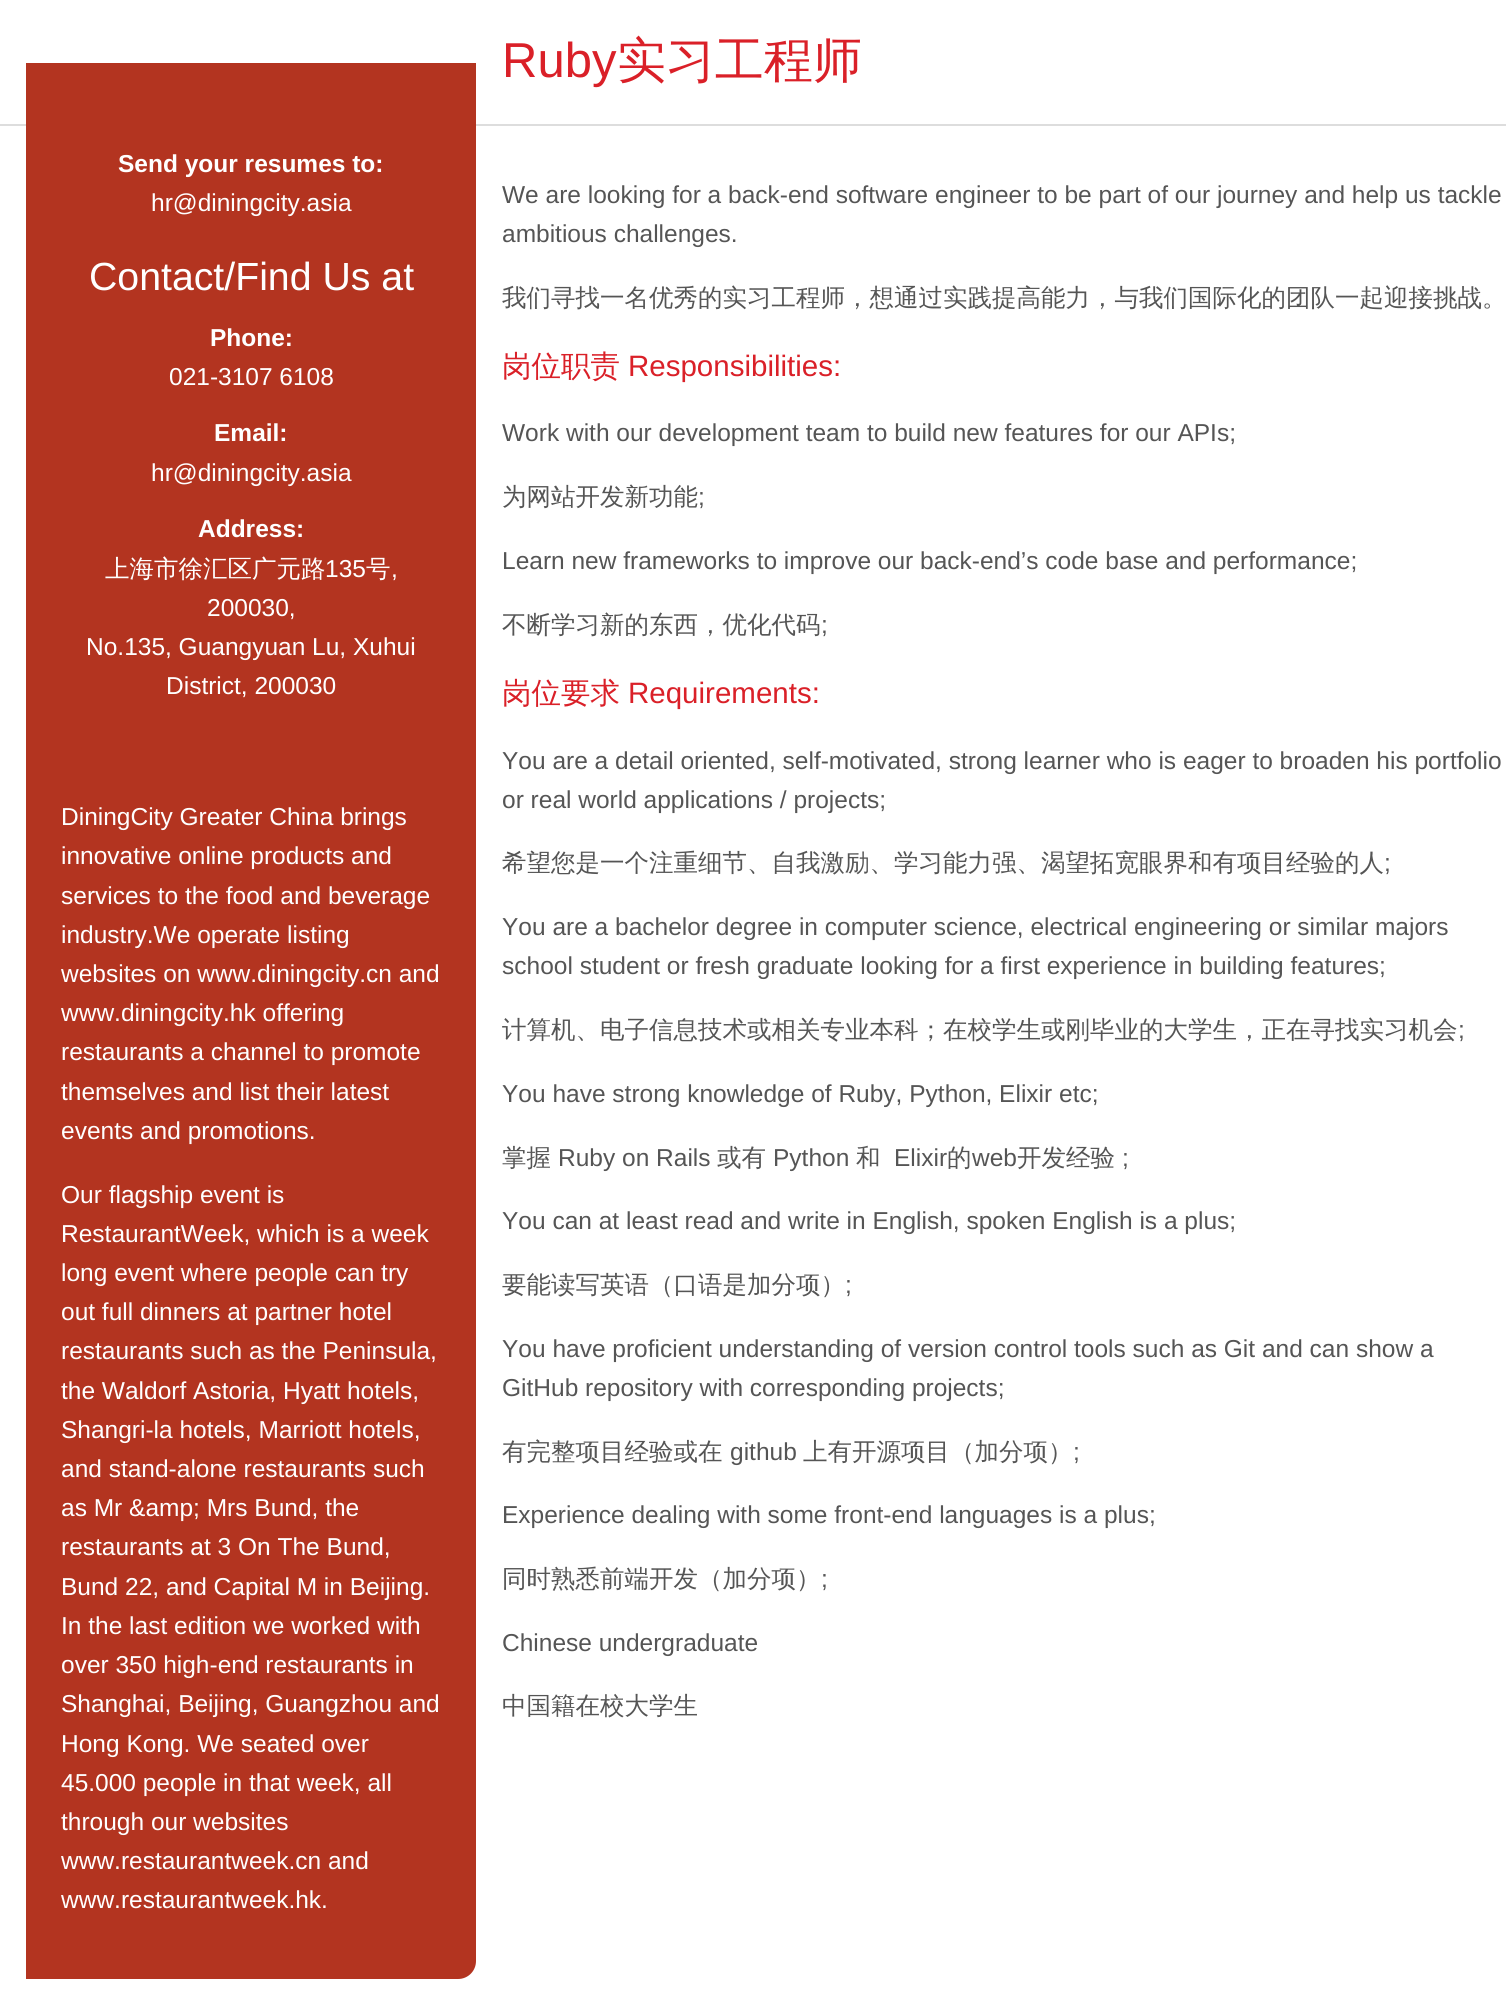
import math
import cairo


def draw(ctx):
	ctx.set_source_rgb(1, 1, 1)
	ctx.paint()
	ctx.set_source_rgb(0.867, 0.867, 0.867)
	ctx.rectangle(0, 124, 1506, 2)
	ctx.fill()
	ctx.set_source_rgb(0.702, 0.204, 0.125)
	ctx.new_path()
	ctx.move_to(26, 63)
	ctx.line_to(476, 63)
	ctx.line_to(476, 1961)
	ctx.curve_to(476, 1971, 468, 1979, 458, 1979)
	ctx.line_to(26, 1979)
	ctx.close_path()
	ctx.fill()
	ctx.select_font_face('Liberation Sans', cairo.FONT_SLANT_NORMAL, cairo.FONT_WEIGHT_BOLD)
	ctx.set_font_size(24.5)
	ctx.set_source_rgb(1, 1, 1)
	ctx.move_to(118, 172)
	ctx.show_text('Send your resumes to:')
	ctx.select_font_face('Liberation Sans')
	ctx.move_to(151, 211)
	ctx.show_text('hr@diningcity.asia')
	ctx.set_font_size(39.25)
	ctx.move_to(89, 290)
	ctx.show_text('Contact/Find Us at')
	ctx.select_font_face('Liberation Sans', cairo.FONT_SLANT_NORMAL, cairo.FONT_WEIGHT_BOLD)
	ctx.set_font_size(24.5)
	ctx.move_to(210, 346)
	ctx.show_text('Phone:')
	ctx.select_font_face('Liberation Sans')
	ctx.move_to(169, 385)
	ctx.show_text('021-3107 6108')
	ctx.select_font_face('Liberation Sans', cairo.FONT_SLANT_NORMAL, cairo.FONT_WEIGHT_BOLD)
	ctx.move_to(214, 441)
	ctx.show_text('Email:')
	ctx.select_font_face('Liberation Sans')
	ctx.move_to(151, 481)
	ctx.show_text('hr@diningcity.asia')
	ctx.select_font_face('Liberation Sans', cairo.FONT_SLANT_NORMAL, cairo.FONT_WEIGHT_BOLD)
	ctx.move_to(198, 537)
	ctx.show_text('Address:')
	ctx.select_font_face('WenQuanYi Zen Hei Medium')
	ctx.move_to(105, 577)
	ctx.show_text('上海市徐汇区广元路')
	ctx.select_font_face('Liberation Sans')
	ctx.move_to(325, 577)
	ctx.show_text('135')
	ctx.select_font_face('WenQuanYi Zen Hei Medium')
	ctx.move_to(366, 577)
	ctx.show_text('号')
	ctx.select_font_face('Liberation Sans')
	for x, y, s in [
		(391, 577, ','),
		(207, 616, '200030,'),
		(86, 655, 'No.135, Guangyuan Lu, Xuhui'),
		(166, 694, 'District, 200030'),
		(61, 825, 'DiningCity Greater China brings'),
		(61, 864, 'innovative online products and'),
		(61, 904, 'services to the food and beverage'),
		(61, 943, 'industry.We operate listing'),
		(61, 982, 'websites on www.diningcity.cn and'),
		(61, 1021, 'www.diningcity.hk offering'),
		(61, 1060, 'restaurants a channel to promote'),
		(61, 1100, 'themselves and list their latest'),
		(61, 1139, 'events and promotions.'),
		(61, 1203, 'Our flagship event is'),
		(61, 1242, 'RestaurantWeek, which is a week'),
		(61, 1281, 'long event where people can try'),
		(61, 1320, 'out full dinners at partner hotel'),
		(61, 1359, 'restaurants such as the Peninsula,'),
		(61, 1399, 'the Waldorf Astoria, Hyatt hotels,'),
		(61, 1438, 'Shangri-la hotels, Marriott hotels,'),
		(61, 1477, 'and stand-alone restaurants such'),
		(61, 1516, 'as Mr &amp; Mrs Bund, the'),
		(61, 1555, 'restaurants at 3 On The Bund,'),
		(61, 1595, 'Bund 22, and Capital M in Beijing.'),
		(61, 1634, 'In the last edition we worked with'),
		(61, 1673, 'over 350 high-end restaurants in'),
		(61, 1712, 'Shanghai, Beijing, Guangzhou and'),
		(61, 1752, 'Hong Kong. We seated over'),
		(61, 1791, '45.000 people in that week, all'),
		(61, 1830, 'through our websites'),
		(61, 1869, 'www.restaurantweek.cn and'),
		(61, 1908, 'www.restaurantweek.hk.'),
	]:
		ctx.move_to(x, y)
		ctx.show_text(s)
	ctx.set_font_size(49)
	ctx.set_source_rgb(0.855, 0.125, 0.157)
	ctx.move_to(502, 77)
	ctx.show_text('Ruby')
	ctx.select_font_face('WenQuanYi Zen Hei Medium')
	ctx.move_to(617, 77)
	ctx.show_text('实习工程师')
	ctx.select_font_face('Liberation Sans')
	ctx.set_font_size(24.5)
	ctx.set_source_rgb(0.333, 0.333, 0.333)
	ctx.move_to(502, 203)
	ctx.show_text('We are looking for a back-end software engineer to be part of our journey and help us tackle')
	ctx.move_to(502, 242)
	ctx.show_text('ambitious challenges.')
	ctx.select_font_face('WenQuanYi Zen Hei Medium')
	ctx.move_to(502, 306)
	ctx.show_text('我们寻找一名优秀的实习工程师，想通过实践提高能力，与我们国际化的团队一起迎接挑战。')
	ctx.set_font_size(29.5)
	ctx.set_source_rgb(0.855, 0.125, 0.157)
	ctx.move_to(502, 376)
	ctx.show_text('岗位职责')
	ctx.select_font_face('Liberation Sans')
	ctx.move_to(628, 376)
	ctx.show_text('Responsibilities:')
	ctx.set_font_size(24.5)
	ctx.set_source_rgb(0.333, 0.333, 0.333)
	ctx.move_to(502, 441)
	ctx.show_text('Work with our development team to build new features for our APIs;')
	ctx.select_font_face('WenQuanYi Zen Hei Medium')
	ctx.move_to(502, 505)
	ctx.show_text('为网站开发新功能')
	ctx.select_font_face('Liberation Sans')
	ctx.move_to(698, 505)
	ctx.show_text(';')
	ctx.move_to(502, 569)
	ctx.show_text('Learn new frameworks to improve our back-end’s code base and performance;')
	ctx.select_font_face('WenQuanYi Zen Hei Medium')
	ctx.move_to(502, 633)
	ctx.show_text('不断学习新的东西，优化代码')
	ctx.select_font_face('Liberation Sans')
	ctx.move_to(821, 633)
	ctx.show_text(';')
	ctx.select_font_face('WenQuanYi Zen Hei Medium')
	ctx.set_font_size(29.5)
	ctx.set_source_rgb(0.855, 0.125, 0.157)
	ctx.move_to(502, 703)
	ctx.show_text('岗位要求')
	ctx.select_font_face('Liberation Sans')
	ctx.move_to(628, 703)
	ctx.show_text('Requirements:')
	ctx.set_font_size(24.5)
	ctx.set_source_rgb(0.333, 0.333, 0.333)
	ctx.move_to(502, 769)
	ctx.show_text('You are a detail oriented, self-motivated, strong learner who is eager to broaden his portfolio')
	ctx.move_to(502, 808)
	ctx.show_text('or real world applications / projects;')
	ctx.select_font_face('WenQuanYi Zen Hei Medium')
	ctx.move_to(502, 871)
	ctx.show_text('希望您是一个注重细节、自我激励、学习能力强、渴望拓宽眼界和有项目经验的人')
	ctx.select_font_face('Liberation Sans')
	for x, y, s in [
		(1384, 871, ';'),
		(502, 935, 'You are a bachelor degree in computer science, electrical engineering or similar majors'),
		(502, 974, 'school student or fresh graduate looking for a first experience in building features;'),
	]:
		ctx.move_to(x, y)
		ctx.show_text(s)
	ctx.select_font_face('WenQuanYi Zen Hei Medium')
	ctx.move_to(502, 1038)
	ctx.show_text('计算机、电子信息技术或相关专业本科；在校学生或刚毕业的大学生，正在寻找实习机会')
	ctx.select_font_face('Liberation Sans')
	ctx.move_to(1458, 1038)
	ctx.show_text(';')
	ctx.move_to(502, 1102)
	ctx.show_text('You have strong knowledge of Ruby, Python, Elixir etc;')
	ctx.select_font_face('WenQuanYi Zen Hei Medium')
	ctx.move_to(502, 1166)
	ctx.show_text('掌握')
	ctx.select_font_face('Liberation Sans')
	ctx.move_to(558, 1166)
	ctx.show_text('Ruby on Rails')
	ctx.select_font_face('WenQuanYi Zen Hei Medium')
	ctx.move_to(717, 1166)
	ctx.show_text('或有')
	ctx.select_font_face('Liberation Sans')
	ctx.move_to(773, 1166)
	ctx.show_text('Python')
	ctx.select_font_face('WenQuanYi Zen Hei Medium')
	ctx.move_to(856, 1166)
	ctx.show_text('和')
	ctx.select_font_face('Liberation Sans')
	ctx.move_to(894, 1166)
	ctx.show_text('Elixir')
	ctx.select_font_face('WenQuanYi Zen Hei Medium')
	ctx.move_to(947, 1166)
	ctx.show_text('的')
	ctx.select_font_face('Liberation Sans')
	ctx.move_to(972, 1166)
	ctx.show_text('web')
	ctx.select_font_face('WenQuanYi Zen Hei Medium')
	ctx.move_to(1017, 1166)
	ctx.show_text('开发经验')
	ctx.select_font_face('Liberation Sans')
	ctx.move_to(1122, 1166)
	ctx.show_text(';')
	ctx.move_to(502, 1229)
	ctx.show_text('You can at least read and write in English, spoken English is a plus;')
	ctx.select_font_face('WenQuanYi Zen Hei Medium')
	ctx.move_to(502, 1293)
	ctx.show_text('要能读写英语（口语是加分项）')
	ctx.select_font_face('Liberation Sans')
	for x, y, s in [
		(845, 1293, ';'),
		(502, 1357, 'You have proficient understanding of version control tools such as Git and can show a'),
		(502, 1396, 'GitHub repository with corresponding projects;'),
	]:
		ctx.move_to(x, y)
		ctx.show_text(s)
	ctx.select_font_face('WenQuanYi Zen Hei Medium')
	ctx.move_to(502, 1460)
	ctx.show_text('有完整项目经验或在')
	ctx.select_font_face('Liberation Sans')
	ctx.move_to(730, 1460)
	ctx.show_text('github')
	ctx.select_font_face('WenQuanYi Zen Hei Medium')
	ctx.move_to(803, 1460)
	ctx.show_text('上有开源项目（加分项）')
	ctx.select_font_face('Liberation Sans')
	ctx.move_to(1073, 1460)
	ctx.show_text(';')
	ctx.move_to(502, 1523)
	ctx.show_text('Experience dealing with some front-end languages is a plus;')
	ctx.select_font_face('WenQuanYi Zen Hei Medium')
	ctx.move_to(502, 1587)
	ctx.show_text('同时熟悉前端开发（加分项）')
	ctx.select_font_face('Liberation Sans')
	ctx.move_to(821, 1587)
	ctx.show_text(';')
	ctx.move_to(502, 1651)
	ctx.show_text('Chinese undergraduate')
	ctx.select_font_face('WenQuanYi Zen Hei Medium')
	ctx.move_to(502, 1714)
	ctx.show_text('中国籍在校大学生')


surface = cairo.ImageSurface(cairo.FORMAT_RGB24, 1506, 1996)
ctx = cairo.Context(surface)
options = cairo.FontOptions()
options.set_hint_metrics(cairo.HINT_METRICS_OFF)
options.set_hint_style(cairo.HINT_STYLE_NONE)
ctx.set_font_options(options)
ctx.set_miter_limit(4)
draw(ctx)
surface.write_to_png('image.png')
